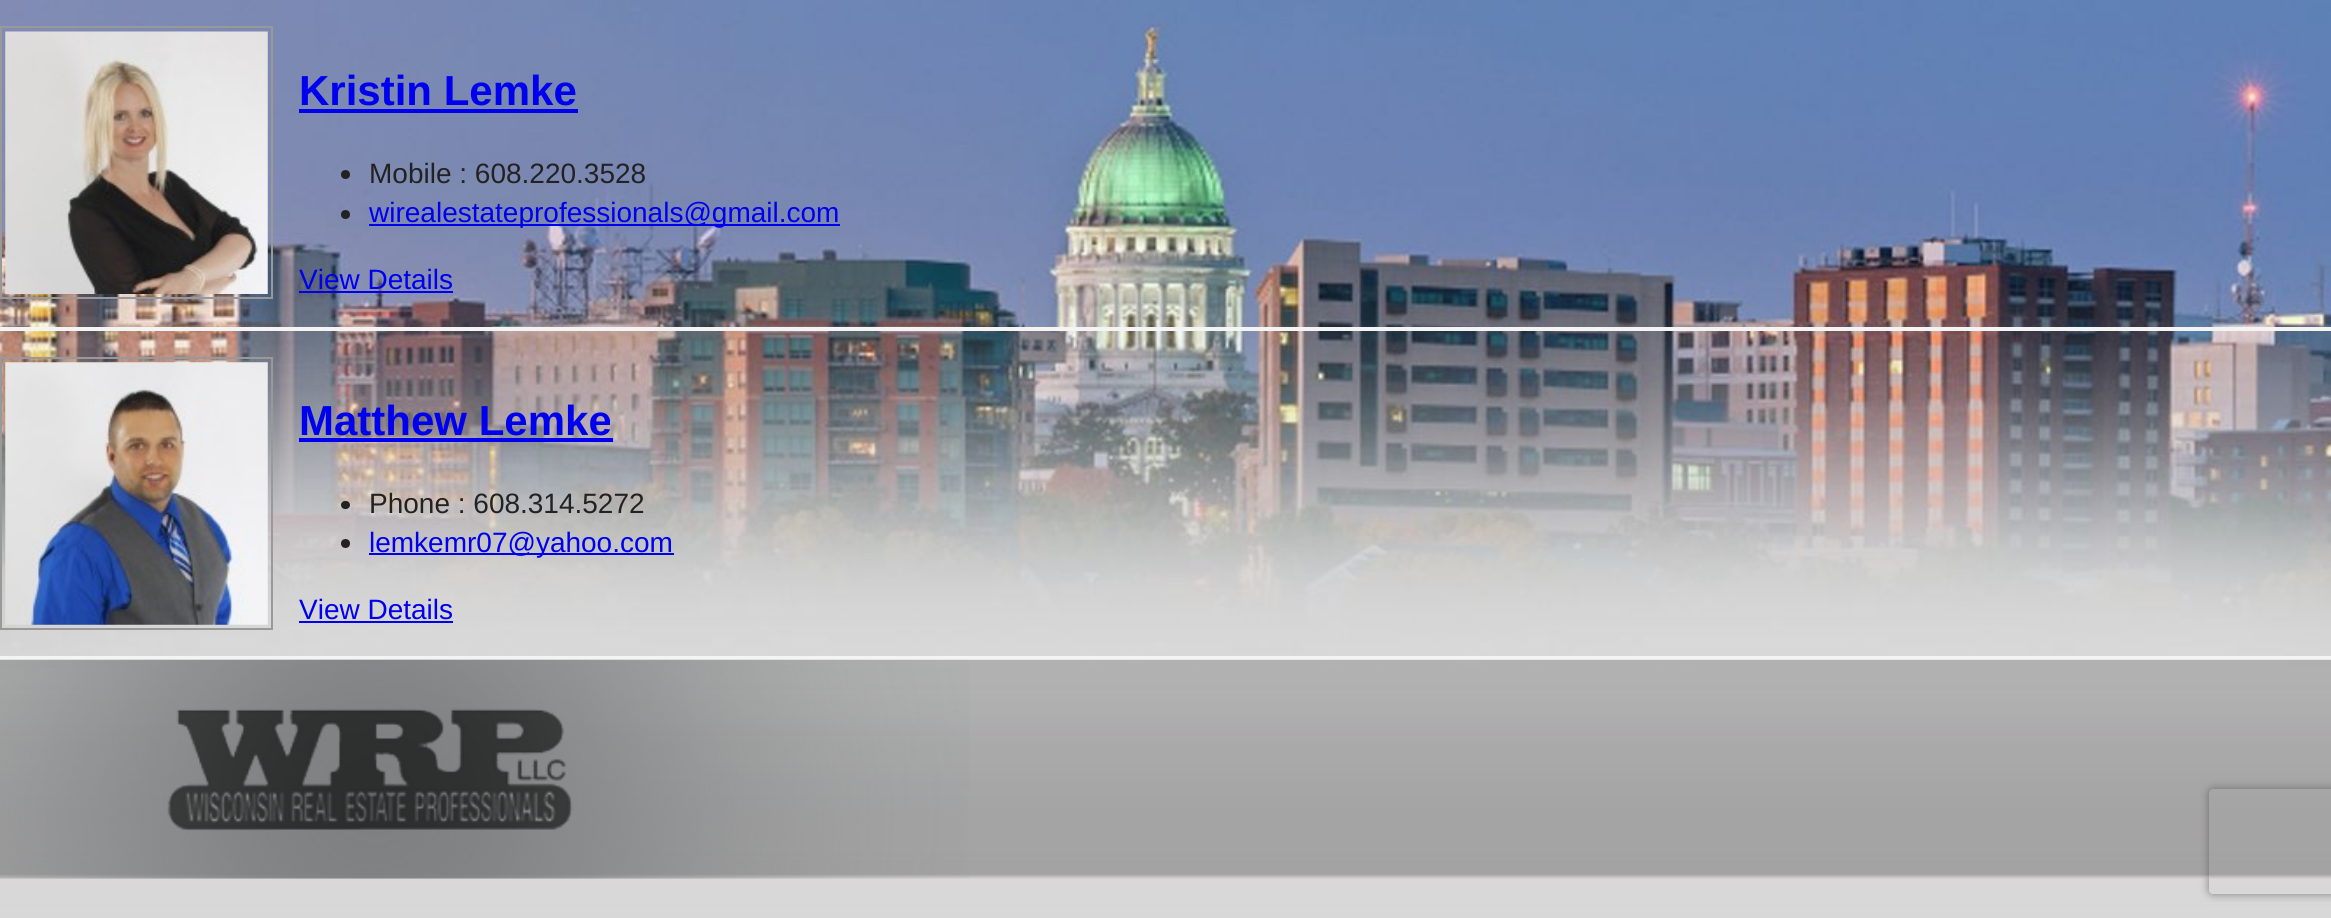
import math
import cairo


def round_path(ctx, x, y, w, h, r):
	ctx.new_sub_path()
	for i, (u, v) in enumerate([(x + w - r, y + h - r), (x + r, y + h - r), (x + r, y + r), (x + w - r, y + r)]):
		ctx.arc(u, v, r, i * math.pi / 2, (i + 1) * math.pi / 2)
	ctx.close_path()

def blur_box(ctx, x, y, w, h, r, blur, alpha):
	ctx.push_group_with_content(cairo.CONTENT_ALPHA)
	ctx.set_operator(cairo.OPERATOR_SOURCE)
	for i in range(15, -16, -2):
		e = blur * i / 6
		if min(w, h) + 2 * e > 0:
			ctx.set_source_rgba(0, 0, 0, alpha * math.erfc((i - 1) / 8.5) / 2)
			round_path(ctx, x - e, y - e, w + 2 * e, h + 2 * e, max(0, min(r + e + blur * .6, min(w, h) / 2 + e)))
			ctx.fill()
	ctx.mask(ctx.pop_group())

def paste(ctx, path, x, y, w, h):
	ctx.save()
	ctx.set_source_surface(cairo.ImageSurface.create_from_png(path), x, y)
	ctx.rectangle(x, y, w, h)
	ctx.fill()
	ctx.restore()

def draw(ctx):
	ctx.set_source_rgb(1, 1, 1)
	ctx.paint()
	paste(ctx, 'media/1.png', 0, 668, 2331, 250)
	paste(ctx, 'media/2.png', 0, 0, 2331, 668)
	ctx.set_source_rgb(0.957, 0.957, 0.957)
	ctx.rectangle(0, 327, 2331, 4)
	ctx.fill()
	ctx.rectangle(1, 27, 271, 271)
	ctx.set_source_rgb(0.6, 0.6, 0.6)
	ctx.stroke()
	paste(ctx, 'media/3.png', 5, 31, 263, 263)
	ctx.select_font_face('Liberation Sans', cairo.FONT_SLANT_NORMAL, cairo.FONT_WEIGHT_BOLD)
	ctx.set_font_size(42)
	ctx.set_source_rgb(0, 0, 0.933)
	ctx.move_to(299, 105)
	ctx.show_text('Kristin Lemke')
	ctx.rectangle(299, 109, 279, 4)
	ctx.fill()
	ctx.set_source_rgb(0.133, 0.133, 0.133)
	ctx.arc(345.5, 174.5, 4.5, 0, 2 * math.pi)
	ctx.fill()
	ctx.select_font_face('Liberation Sans')
	ctx.set_font_size(28)
	ctx.move_to(369, 183)
	ctx.show_text('Mobile : 608.220.3528')
	ctx.new_path()
	ctx.arc(345.5, 214.5, 4.5, 0, 2 * math.pi)
	ctx.fill()
	ctx.set_source_rgb(0, 0, 0.933)
	ctx.rectangle(369, 224, 471, 2)
	ctx.fill()
	ctx.move_to(369, 222)
	ctx.show_text('wirealestateprofessionals@gmail.com')
	ctx.move_to(299, 289)
	ctx.show_text('View Details')
	ctx.rectangle(299, 291, 154, 2)
	ctx.fill()
	ctx.set_source_rgb(0.957, 0.957, 0.957)
	ctx.rectangle(0, 656, 2331, 4)
	ctx.fill()
	ctx.rectangle(1, 358, 271, 271)
	ctx.set_source_rgb(0.6, 0.6, 0.6)
	ctx.stroke()
	paste(ctx, 'media/4.png', 5, 362, 263, 263)
	ctx.select_font_face('Liberation Sans', cairo.FONT_SLANT_NORMAL, cairo.FONT_WEIGHT_BOLD)
	ctx.set_font_size(42)
	ctx.set_source_rgb(0, 0, 0.933)
	ctx.move_to(299, 435)
	ctx.show_text('Matthew Lemke')
	ctx.rectangle(299, 438, 314, 4)
	ctx.fill()
	ctx.set_source_rgb(0.133, 0.133, 0.133)
	round_path(ctx, 341, 501, 9, 8, 4)
	ctx.fill()
	ctx.select_font_face('Liberation Sans')
	ctx.set_font_size(28)
	ctx.move_to(369, 513)
	ctx.show_text('Phone : 608.314.5272')
	ctx.new_path()
	ctx.arc(345.5, 543.5, 4.5, 0, 2 * math.pi)
	ctx.fill()
	ctx.set_source_rgb(0, 0, 0.933)
	ctx.rectangle(369, 553, 305, 2)
	ctx.fill()
	ctx.move_to(369, 552)
	ctx.show_text('lemkemr07@yahoo.com')
	ctx.move_to(299, 619)
	ctx.show_text('View Details')
	ctx.rectangle(299, 621, 154, 2)
	ctx.fill()
	ctx.save()
	ctx.set_fill_rule(cairo.FILL_RULE_EVEN_ODD)
	ctx.new_path()
	ctx.move_to(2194, 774)
	ctx.line_to(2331, 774)
	ctx.line_to(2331, 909)
	ctx.line_to(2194, 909)
	ctx.close_path()
	ctx.move_to(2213, 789)
	ctx.line_to(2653, 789)
	ctx.curve_to(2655, 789, 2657, 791, 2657, 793)
	ctx.line_to(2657, 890)
	ctx.curve_to(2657, 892, 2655, 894, 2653, 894)
	ctx.line_to(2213, 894)
	ctx.curve_to(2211, 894, 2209, 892, 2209, 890)
	ctx.line_to(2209, 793)
	ctx.curve_to(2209, 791, 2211, 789, 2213, 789)
	ctx.close_path()
	ctx.clip()
	ctx.set_source_rgb(0.502, 0.502, 0.502)
	blur_box(ctx, 2209, 789, 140, 105, 4, 4.5, 1)
	ctx.restore()
	paste(ctx, 'media/5.png', 0, 659, 2331, 220)
	paste(ctx, 'media/6.png', 0, 659, 969, 220)


surface = cairo.ImageSurface(cairo.FORMAT_RGB24, 2331, 918)
ctx = cairo.Context(surface)
options = cairo.FontOptions()
options.set_hint_metrics(cairo.HINT_METRICS_OFF)
options.set_hint_style(cairo.HINT_STYLE_NONE)
ctx.set_font_options(options)
ctx.set_miter_limit(4)
draw(ctx)
surface.write_to_png('image.png')
